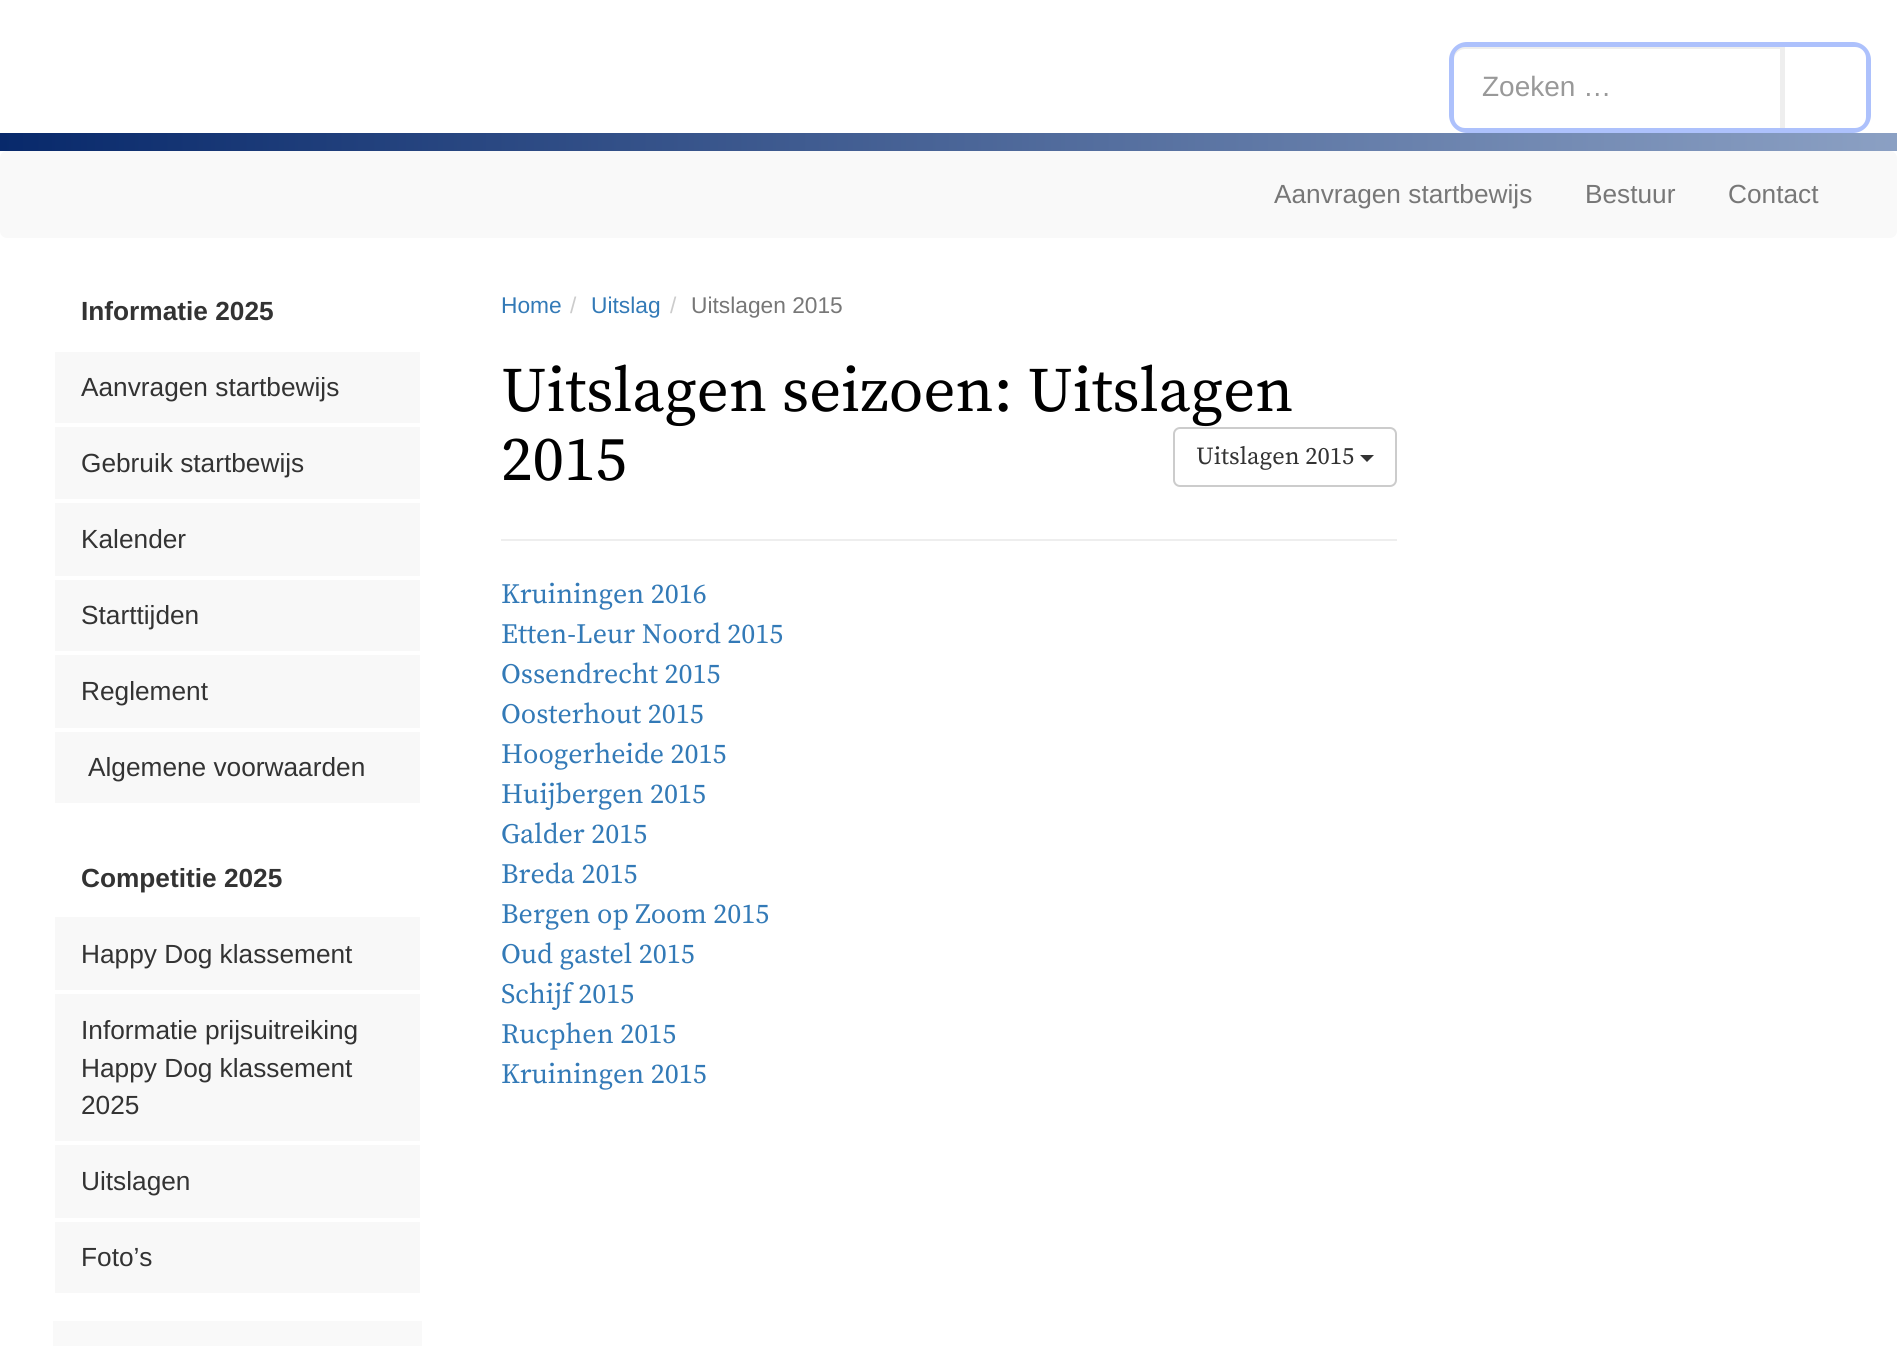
import math
import cairo


def round_path(ctx, x, y, w, h, r):
	ctx.new_sub_path()
	for i, (u, v) in enumerate([(x + w - r, y + h - r), (x + r, y + h - r), (x + r, y + r), (x + w - r, y + r)]):
		ctx.arc(u, v, r, i * math.pi / 2, (i + 1) * math.pi / 2)
	ctx.close_path()

def draw(ctx):
	ctx.set_source_rgb(1, 1, 1)
	ctx.paint()
	ctx.set_source_rgb(0.678, 0.757, 0.988)
	round_path(ctx, 1449, 42, 422, 91, 18)
	ctx.fill()
	ctx.set_source_rgb(1, 1, 1)
	ctx.new_path()
	ctx.move_to(1465, 47)
	ctx.line_to(1782, 47)
	ctx.line_to(1782, 128)
	ctx.line_to(1465, 128)
	ctx.curve_to(1459, 128, 1454, 123, 1454, 117)
	ctx.line_to(1454, 58)
	ctx.curve_to(1454, 52, 1459, 47, 1465, 47)
	ctx.close_path()
	ctx.fill()
	ctx.set_source_rgba(0, 0, 0, 0.07)
	ctx.new_path()
	ctx.move_to(1465, 49)
	ctx.line_to(1782, 49)
	ctx.line_to(1782, 47)
	ctx.line_to(1465, 47)
	ctx.curve_to(1459, 47, 1454, 52, 1454, 58)
	ctx.line_to(1454, 60)
	ctx.curve_to(1454, 54, 1459, 49, 1465, 49)
	ctx.close_path()
	ctx.fill()
	ctx.select_font_face('Liberation Sans')
	ctx.set_font_size(28)
	ctx.set_source_rgb(0.6, 0.6, 0.6)
	ctx.move_to(1482, 96)
	ctx.show_text('Zoeken …')
	ctx.set_source_rgb(1, 1, 1)
	ctx.new_path()
	ctx.move_to(1785, 47)
	ctx.line_to(1855, 47)
	ctx.curve_to(1861, 47, 1866, 52, 1866, 58)
	ctx.line_to(1866, 117)
	ctx.curve_to(1866, 123, 1861, 128, 1855, 128)
	ctx.line_to(1785, 128)
	ctx.close_path()
	ctx.fill()
	ctx.set_source_rgb(0.933, 0.933, 0.933)
	ctx.rectangle(1780, 47, 5, 81)
	ctx.fill()
	gradient = cairo.LinearGradient(0, 142, 1897, 142)
	gradient.add_color_stop_rgba(0, 0.031, 0.161, 0.42, 1)
	gradient.add_color_stop_rgba(1, 0.545, 0.627, 0.765, 1)
	ctx.set_source(gradient)
	ctx.rectangle(0, 133, 1897, 18)
	ctx.fill()
	ctx.set_source_rgb(0.973, 0.973, 0.973)
	round_path(ctx, 0, 151, 1897, 87, 7)
	ctx.fill()
	ctx.set_font_size(26.25)
	ctx.set_source_rgb(0.467, 0.467, 0.467)
	for x, y, s in [
		(1274, 203, 'Aanvragen startbewijs'),
		(1585, 203, 'Bestuur'),
		(1728, 203, 'Contact'),
	]:
		ctx.move_to(x, y)
		ctx.show_text(s)
	ctx.select_font_face('Liberation Sans', cairo.FONT_SLANT_NORMAL, cairo.FONT_WEIGHT_BOLD)
	ctx.set_source_rgb(0.2, 0.2, 0.2)
	ctx.move_to(81, 320)
	ctx.show_text('Informatie 2025')
	ctx.set_source_rgb(0.969, 0.969, 0.969)
	ctx.rectangle(55, 352, 365, 71)
	ctx.fill()
	ctx.select_font_face('Liberation Sans')
	ctx.set_source_rgb(0.2, 0.2, 0.2)
	ctx.move_to(81, 396)
	ctx.show_text('Aanvragen startbewijs')
	ctx.set_source_rgb(0.969, 0.969, 0.969)
	ctx.rectangle(55, 427, 365, 72)
	ctx.fill()
	ctx.set_source_rgb(0.2, 0.2, 0.2)
	ctx.move_to(81, 472)
	ctx.show_text('Gebruik startbewijs')
	ctx.set_source_rgb(0.969, 0.969, 0.969)
	ctx.rectangle(55, 503, 365, 73)
	ctx.fill()
	ctx.set_source_rgb(0.2, 0.2, 0.2)
	ctx.move_to(81, 548)
	ctx.show_text('Kalender')
	ctx.set_source_rgb(0.969, 0.969, 0.969)
	ctx.rectangle(55, 580, 365, 71)
	ctx.fill()
	ctx.set_source_rgb(0.2, 0.2, 0.2)
	ctx.move_to(81, 624)
	ctx.show_text('Starttijden')
	ctx.set_source_rgb(0.969, 0.969, 0.969)
	ctx.rectangle(55, 655, 365, 73)
	ctx.fill()
	ctx.set_source_rgb(0.2, 0.2, 0.2)
	ctx.move_to(81, 700)
	ctx.show_text('Reglement')
	ctx.set_source_rgb(0.969, 0.969, 0.969)
	ctx.rectangle(55, 732, 365, 71)
	ctx.fill()
	ctx.set_source_rgb(0.2, 0.2, 0.2)
	ctx.move_to(88, 776)
	ctx.show_text('Algemene voorwaarden')
	ctx.select_font_face('Liberation Sans', cairo.FONT_SLANT_NORMAL, cairo.FONT_WEIGHT_BOLD)
	ctx.move_to(81, 887)
	ctx.show_text('Competitie 2025')
	ctx.set_source_rgb(0.969, 0.969, 0.969)
	ctx.rectangle(55, 917, 365, 73)
	ctx.fill()
	ctx.select_font_face('Liberation Sans')
	ctx.set_source_rgb(0.2, 0.2, 0.2)
	ctx.move_to(81, 963)
	ctx.show_text('Happy Dog klassement')
	ctx.set_source_rgb(0.969, 0.969, 0.969)
	ctx.rectangle(55, 994, 365, 147)
	ctx.fill()
	ctx.set_source_rgb(0.2, 0.2, 0.2)
	for x, y, s in [
		(81, 1039, 'Informatie prijsuitreiking'),
		(81, 1077, 'Happy Dog klassement'),
		(81, 1114, '2025'),
	]:
		ctx.move_to(x, y)
		ctx.show_text(s)
	ctx.set_source_rgb(0.969, 0.969, 0.969)
	ctx.rectangle(55, 1145, 365, 73)
	ctx.fill()
	ctx.set_source_rgb(0.2, 0.2, 0.2)
	ctx.move_to(81, 1190)
	ctx.show_text('Uitslagen')
	ctx.set_source_rgb(0.969, 0.969, 0.969)
	ctx.rectangle(55, 1222, 365, 71)
	ctx.fill()
	ctx.set_source_rgb(0.2, 0.2, 0.2)
	ctx.move_to(81, 1266)
	ctx.show_text('Foto’s')
	ctx.set_source_rgb(0.973, 0.973, 0.973)
	ctx.rectangle(53, 1321, 369, 25)
	ctx.fill()
	ctx.set_font_size(22.75)
	ctx.set_source_rgb(0.2, 0.478, 0.718)
	ctx.move_to(501, 313)
	ctx.show_text('Home')
	ctx.set_source_rgb(0.8, 0.8, 0.8)
	ctx.move_to(570, 313)
	ctx.show_text('/')
	ctx.set_source_rgb(0.2, 0.478, 0.718)
	ctx.move_to(591, 313)
	ctx.show_text('Uitslag')
	ctx.set_source_rgb(0.8, 0.8, 0.8)
	ctx.move_to(670, 313)
	ctx.show_text('/')
	ctx.set_source_rgb(0.467, 0.467, 0.467)
	ctx.move_to(691, 313)
	ctx.show_text('Uitslagen 2015')
	ctx.select_font_face('Source Serif Pro')
	ctx.set_font_size(63)
	ctx.set_source_rgb(0, 0, 0)
	ctx.move_to(501, 411)
	ctx.show_text('Uitslagen seizoen: Uitslagen')
	ctx.move_to(501, 480)
	ctx.show_text('2015')
	round_path(ctx, 1174, 428, 222, 58, 6)
	ctx.set_source_rgb(0.8, 0.8, 0.8)
	ctx.stroke()
	ctx.set_font_size(24.5)
	ctx.set_source_rgb(0.2, 0.2, 0.2)
	ctx.move_to(1196, 464)
	ctx.show_text('Uitslagen 2015')
	ctx.new_path()
	ctx.move_to(1360, 455)
	ctx.line_to(1374, 455)
	ctx.line_to(1367, 462)
	ctx.close_path()
	ctx.fill()
	ctx.set_source_rgb(0.933, 0.933, 0.933)
	ctx.rectangle(501, 539, 896, 2)
	ctx.fill()
	ctx.set_font_size(28)
	ctx.set_source_rgb(0.2, 0.478, 0.718)
	for x, y, s in [
		(501, 603, 'Kruiningen 2016'),
		(501, 643, 'Etten-Leur Noord 2015'),
		(501, 683, 'Ossendrecht 2015'),
		(501, 723, 'Oosterhout 2015'),
		(501, 763, 'Hoogerheide 2015'),
		(501, 803, 'Huijbergen 2015'),
		(501, 843, 'Galder 2015'),
		(501, 883, 'Breda 2015'),
		(501, 923, 'Bergen op Zoom 2015'),
		(501, 963, 'Oud gastel 2015'),
		(501, 1003, 'Schijf 2015'),
		(501, 1043, 'Rucphen 2015'),
		(501, 1083, 'Kruiningen 2015'),
	]:
		ctx.move_to(x, y)
		ctx.show_text(s)


surface = cairo.ImageSurface(cairo.FORMAT_RGB24, 1897, 1346)
ctx = cairo.Context(surface)
options = cairo.FontOptions()
options.set_hint_metrics(cairo.HINT_METRICS_OFF)
options.set_hint_style(cairo.HINT_STYLE_NONE)
ctx.set_font_options(options)
ctx.set_miter_limit(4)
draw(ctx)
surface.write_to_png('image.png')
